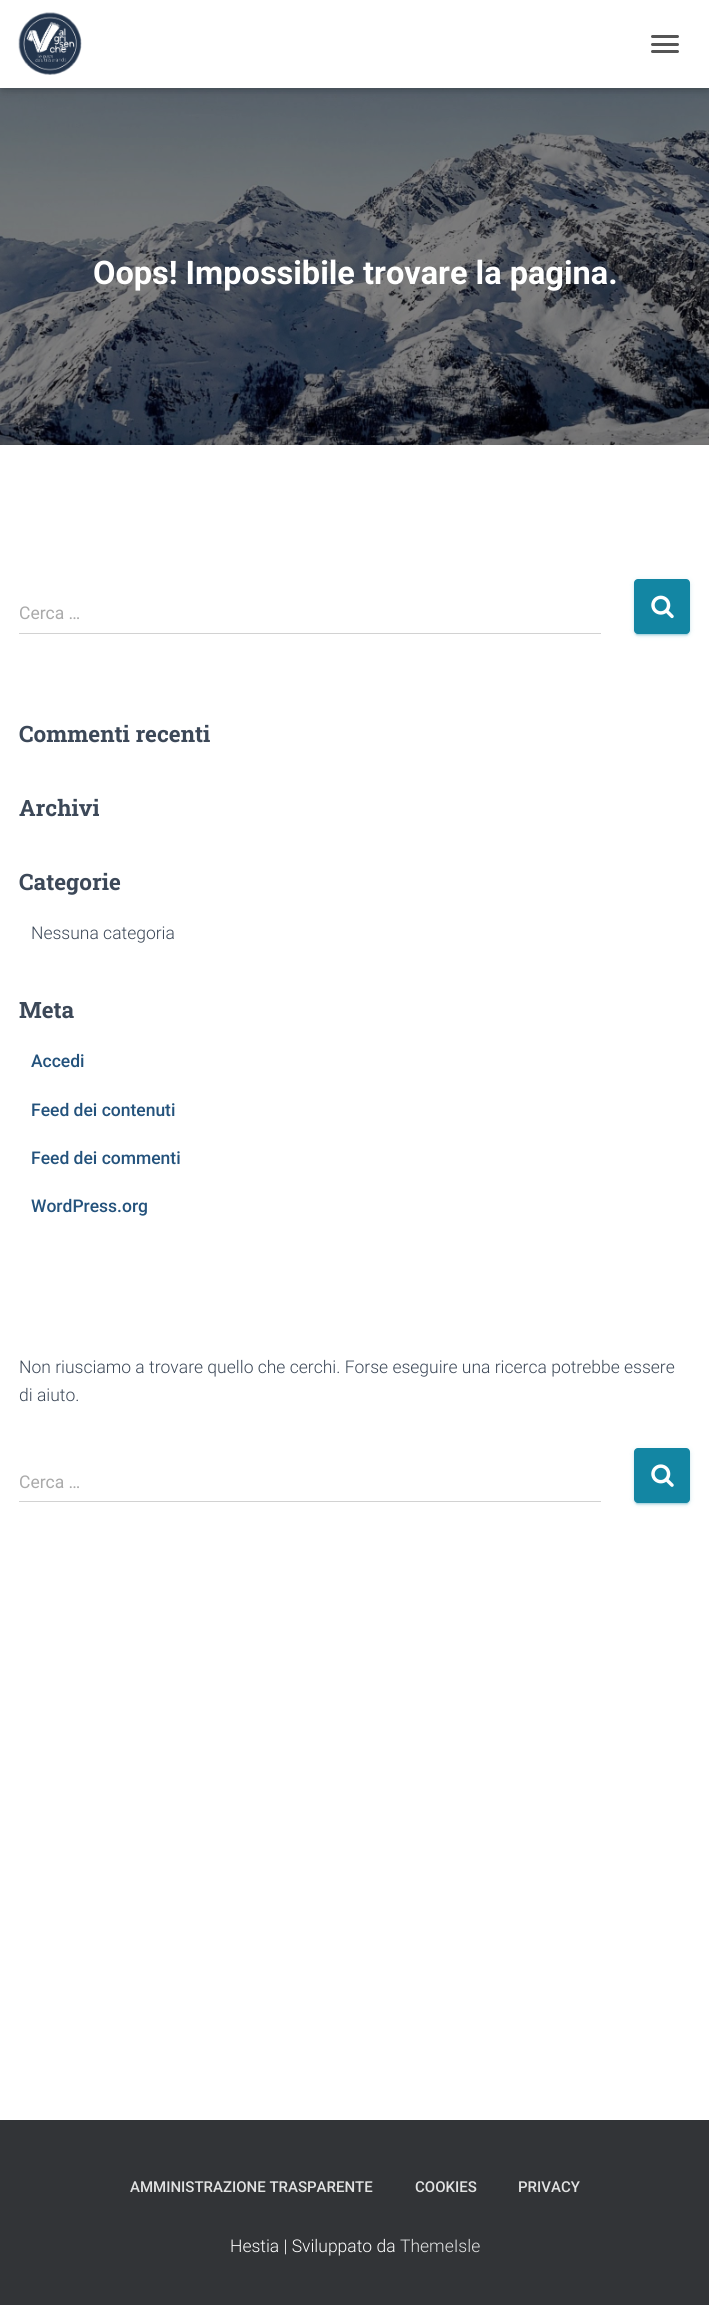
import math
import cairo


def round_path(ctx, x, y, w, h, r):
	ctx.new_sub_path()
	for i, (u, v) in enumerate([(x + w - r, y + h - r), (x + r, y + h - r), (x + r, y + r), (x + w - r, y + r)]):
		ctx.arc(u, v, r, i * math.pi / 2, (i + 1) * math.pi / 2)
	ctx.close_path()

def blur_box(ctx, x, y, w, h, r, blur, alpha):
	ctx.push_group_with_content(cairo.CONTENT_ALPHA)
	ctx.set_operator(cairo.OPERATOR_SOURCE)
	for i in range(15, -16, -2):
		e = blur * i / 6
		if min(w, h) + 2 * e > 0:
			ctx.set_source_rgba(0, 0, 0, alpha * math.erfc((i - 1) / 8.5) / 2)
			round_path(ctx, x - e, y - e, w + 2 * e, h + 2 * e, max(0, min(r + e + blur * .6, min(w, h) / 2 + e)))
			ctx.fill()
	ctx.mask(ctx.pop_group())

def paste(ctx, path, x, y, w, h):
	ctx.save()
	ctx.set_source_surface(cairo.ImageSurface.create_from_png(path), x, y)
	ctx.rectangle(x, y, w, h)
	ctx.fill()
	ctx.restore()

def draw(ctx):
	ctx.set_source_rgb(1, 1, 1)
	ctx.paint()
	paste(ctx, 'media/2.png', 0, 88, 709, 357)
	ctx.set_source_rgb(0, 0, 0)
	blur_box(ctx, 3, 8, 705, 82, 0, 3, 0.1)
	blur_box(ctx, 0, 1, 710, 88, 0, 6, 0.12)
	blur_box(ctx, 8, 9, 695, 72, 0, 6, 0.42)
	ctx.set_source_rgb(1, 1, 1)
	ctx.rectangle(0, 0, 709, 88)
	ctx.fill()
	paste(ctx, 'media/1.png', 18, 12, 64, 63)
	ctx.set_source_rgb(0.333, 0.333, 0.333)
	round_path(ctx, 651, 35, 28, 3, 1.5)
	ctx.fill()
	round_path(ctx, 651, 43, 28, 3, 1.5)
	ctx.fill()
	round_path(ctx, 651, 50, 28, 3, 1.5)
	ctx.fill()
	ctx.select_font_face('Roboto', cairo.FONT_SLANT_NORMAL, cairo.FONT_WEIGHT_BOLD)
	ctx.set_font_size(32.5)
	ctx.set_source_rgb(1, 1, 1)
	ctx.move_to(93, 284)
	ctx.show_text('Oops! Impossibile trovare la pagina.')
	ctx.set_source_rgb(0, 0, 0)
	blur_box(ctx, -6, 446, 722, 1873, 0, 19, 0.12)
	ctx.set_source_rgb(1, 1, 1)
	ctx.rectangle(0, 445, 709, 1675)
	ctx.fill()
	ctx.select_font_face('Roboto')
	ctx.set_font_size(17.5)
	ctx.set_source_rgb(0.667, 0.667, 0.667)
	ctx.move_to(19, 619)
	ctx.show_text('Cerca …')
	ctx.set_source_rgb(0.824, 0.824, 0.824)
	ctx.rectangle(19, 633, 582, 1)
	ctx.fill()
	ctx.set_source_rgb(0.075, 0.525, 0.639)
	blur_box(ctx, 634, 580, 56, 55, 4, 3, 0.12)
	blur_box(ctx, 636, 585, 52, 50, 1, 0.5, 0.2)
	blur_box(ctx, 634, 581, 56, 55, 4, 1, 0.14)
	ctx.set_source_rgb(0.075, 0.525, 0.639)
	round_path(ctx, 634, 579, 56, 55, 4)
	ctx.fill()
	paste(ctx, 'media/3.png', 651, 595, 23, 24)
	ctx.select_font_face('Roboto Slab', cairo.FONT_SLANT_NORMAL, cairo.FONT_WEIGHT_BOLD)
	ctx.set_font_size(22.5)
	ctx.set_source_rgb(0.235, 0.282, 0.345)
	for x, y, s in [
		(19, 742, 'Commenti recenti'),
		(19, 816, 'Archivi'),
		(19, 890, 'Categorie'),
	]:
		ctx.move_to(x, y)
		ctx.show_text(s)
	ctx.select_font_face('Roboto Light')
	ctx.set_font_size(17.5)
	ctx.move_to(31, 939)
	ctx.show_text('Nessuna categoria')
	ctx.select_font_face('Roboto Slab', cairo.FONT_SLANT_NORMAL, cairo.FONT_WEIGHT_BOLD)
	ctx.set_font_size(22.5)
	ctx.move_to(19, 1018)
	ctx.show_text('Meta')
	ctx.select_font_face('Roboto Medium')
	ctx.set_font_size(17.5)
	ctx.set_source_rgb(0.137, 0.322, 0.486)
	for x, y, s in [
		(31, 1067, 'Accedi'),
		(31, 1116, 'Feed dei contenuti'),
		(31, 1164, 'Feed dei commenti'),
		(31, 1212, 'WordPress.org'),
	]:
		ctx.move_to(x, y)
		ctx.show_text(s)
	ctx.select_font_face('Roboto Light')
	ctx.set_source_rgb(0.235, 0.282, 0.345)
	ctx.move_to(19, 1373)
	ctx.show_text('Non riusciamo a trovare quello che cerchi. Forse eseguire una ricerca potrebbe essere')
	ctx.move_to(19, 1401)
	ctx.show_text('di aiuto.')
	ctx.select_font_face('Roboto')
	ctx.set_source_rgb(0.667, 0.667, 0.667)
	ctx.move_to(19, 1488)
	ctx.show_text('Cerca …')
	ctx.set_source_rgb(0.824, 0.824, 0.824)
	ctx.rectangle(19, 1501, 582, 1)
	ctx.fill()
	ctx.set_source_rgb(0.075, 0.525, 0.639)
	blur_box(ctx, 634, 1449, 56, 55, 4, 3, 0.12)
	blur_box(ctx, 636, 1454, 52, 50, 1, 0.5, 0.2)
	blur_box(ctx, 634, 1450, 56, 55, 4, 1, 0.14)
	ctx.set_source_rgb(0.075, 0.525, 0.639)
	round_path(ctx, 634, 1448, 56, 55, 4)
	ctx.fill()
	paste(ctx, 'media/4.png', 651, 1464, 23, 23)
	ctx.set_source_rgb(0.196, 0.204, 0.216)
	ctx.rectangle(0, 2120, 709, 185)
	ctx.fill()
	ctx.select_font_face('Roboto Medium')
	ctx.set_font_size(15)
	ctx.set_source_rgb(0.886, 0.89, 0.89)
	for x, y, s in [
		(130, 2192, 'AMMINISTRAZIONE TRASPARENTE'),
		(415, 2192, 'COOKIES'),
		(518, 2192, 'PRIVACY'),
	]:
		ctx.move_to(x, y)
		ctx.show_text(s)
	ctx.select_font_face('Roboto Light')
	ctx.set_font_size(17.5)
	ctx.set_source_rgb(1, 1, 1)
	ctx.move_to(230, 2252)
	ctx.show_text('Hestia | Sviluppato da')
	ctx.set_source_rgb(0.886, 0.89, 0.89)
	ctx.move_to(400, 2252)
	ctx.show_text('ThemeIsle')


surface = cairo.ImageSurface(cairo.FORMAT_RGB24, 709, 2305)
ctx = cairo.Context(surface)
options = cairo.FontOptions()
options.set_hint_metrics(cairo.HINT_METRICS_OFF)
options.set_hint_style(cairo.HINT_STYLE_NONE)
ctx.set_font_options(options)
ctx.set_miter_limit(4)
draw(ctx)
surface.write_to_png('image.png')
